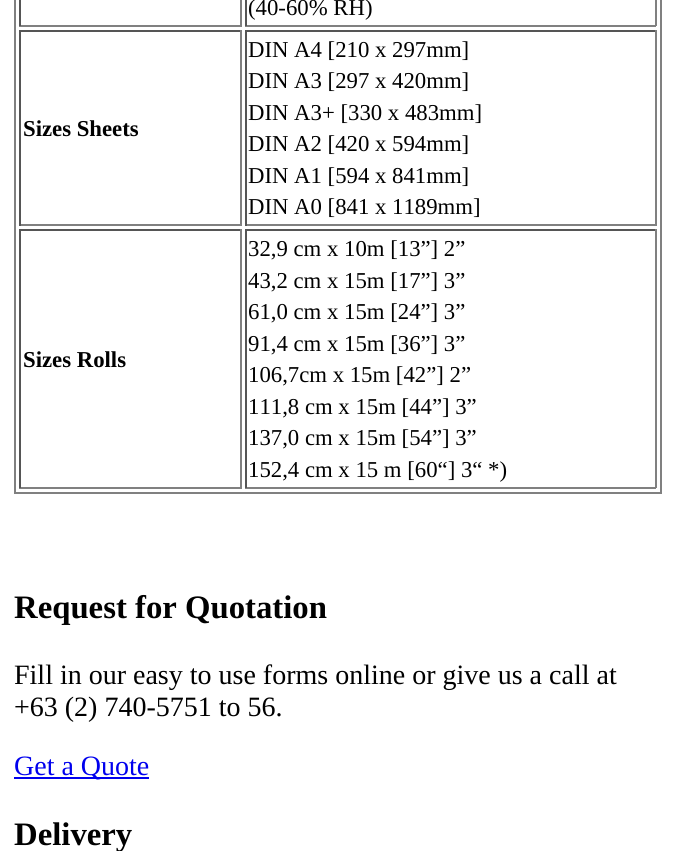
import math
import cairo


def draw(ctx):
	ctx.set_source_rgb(1, 1, 1)
	ctx.paint()
	ctx.rectangle(15, -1, 646, 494)
	ctx.set_source_rgb(0.502, 0.502, 0.502)
	ctx.stroke()
	ctx.rectangle(240, 0, 2, 26)
	ctx.rectangle(19, 25, 223, 2)
	ctx.fill()
	ctx.set_source_rgb(0.333, 0.333, 0.333)
	ctx.rectangle(19, 0, 2, 26)
	ctx.fill()
	ctx.set_source_rgb(0.502, 0.502, 0.502)
	ctx.rectangle(655, 0, 2, 26)
	ctx.rectangle(245, 25, 411, 2)
	ctx.fill()
	ctx.set_source_rgb(0.333, 0.333, 0.333)
	ctx.rectangle(245, 0, 2, 26)
	ctx.fill()
	ctx.select_font_face('Liberation Serif')
	ctx.set_font_size(22.75)
	ctx.set_source_rgb(0, 0, 0)
	ctx.move_to(248, 15)
	ctx.show_text('(40-60% RH)')
	ctx.set_source_rgb(0.333, 0.333, 0.333)
	ctx.rectangle(19, 30, 223, 2)
	ctx.fill()
	ctx.set_source_rgb(0.502, 0.502, 0.502)
	ctx.rectangle(240, 30, 2, 196)
	ctx.rectangle(19, 224, 223, 2)
	ctx.fill()
	ctx.set_source_rgb(0.333, 0.333, 0.333)
	ctx.rectangle(19, 30, 2, 196)
	ctx.fill()
	ctx.select_font_face('Liberation Serif', cairo.FONT_SLANT_NORMAL, cairo.FONT_WEIGHT_BOLD)
	ctx.set_source_rgb(0, 0, 0)
	ctx.move_to(23, 136)
	ctx.show_text('Sizes Sheets')
	ctx.set_source_rgb(0.333, 0.333, 0.333)
	ctx.rectangle(245, 30, 411, 2)
	ctx.fill()
	ctx.set_source_rgb(0.502, 0.502, 0.502)
	ctx.rectangle(655, 30, 2, 196)
	ctx.rectangle(245, 224, 411, 2)
	ctx.fill()
	ctx.set_source_rgb(0.333, 0.333, 0.333)
	ctx.rectangle(245, 30, 2, 196)
	ctx.fill()
	ctx.select_font_face('Liberation Serif')
	ctx.set_source_rgb(0, 0, 0)
	for x, y, s in [
		(248, 57, 'DIN A4 [210 x 297mm]'),
		(248, 88, 'DIN A3 [297 x 420mm]'),
		(248, 120, 'DIN A3+ [330 x 483mm]'),
		(248, 151, 'DIN A2 [420 x 594mm]'),
		(248, 183, 'DIN A1 [594 x 841mm]'),
		(248, 214, 'DIN A0 [841 x 1189mm]'),
	]:
		ctx.move_to(x, y)
		ctx.show_text(s)
	ctx.set_source_rgb(0.333, 0.333, 0.333)
	ctx.rectangle(19, 229, 223, 2)
	ctx.fill()
	ctx.set_source_rgb(0.502, 0.502, 0.502)
	ctx.rectangle(240, 229, 2, 259)
	ctx.rectangle(19, 487, 223, 2)
	ctx.fill()
	ctx.set_source_rgb(0.333, 0.333, 0.333)
	ctx.rectangle(19, 229, 2, 259)
	ctx.fill()
	ctx.select_font_face('Liberation Serif', cairo.FONT_SLANT_NORMAL, cairo.FONT_WEIGHT_BOLD)
	ctx.set_source_rgb(0, 0, 0)
	ctx.move_to(23, 367)
	ctx.show_text('Sizes Rolls')
	ctx.set_source_rgb(0.333, 0.333, 0.333)
	ctx.rectangle(245, 229, 411, 2)
	ctx.fill()
	ctx.set_source_rgb(0.502, 0.502, 0.502)
	ctx.rectangle(655, 229, 2, 259)
	ctx.rectangle(245, 487, 411, 2)
	ctx.fill()
	ctx.set_source_rgb(0.333, 0.333, 0.333)
	ctx.rectangle(245, 229, 2, 259)
	ctx.fill()
	ctx.select_font_face('Liberation Serif')
	ctx.set_source_rgb(0, 0, 0)
	for x, y, s in [
		(248, 256, '32,9 cm x 10m [13”] 2”'),
		(248, 288, '43,2 cm x 15m [17”] 3”'),
		(248, 319, '61,0 cm x 15m [24”] 3”'),
		(248, 351, '91,4 cm x 15m [36”] 3”'),
		(248, 382, '106,7cm x 15m [42”] 2”'),
		(248, 414, '111,8 cm x 15m [44”] 3”'),
		(248, 445, '137,0 cm x 15m [54”] 3”'),
		(248, 477, '152,4 cm x 15 m [60“] 3“ *)'),
	]:
		ctx.move_to(x, y)
		ctx.show_text(s)
	ctx.select_font_face('Liberation Serif', cairo.FONT_SLANT_NORMAL, cairo.FONT_WEIGHT_BOLD)
	ctx.set_font_size(32.75)
	ctx.move_to(14, 618)
	ctx.show_text('Request for Quotation')
	ctx.select_font_face('Liberation Serif')
	ctx.set_font_size(28)
	ctx.move_to(14, 684)
	ctx.show_text('Fill in our easy to use forms online or give us a call at')
	ctx.move_to(14, 716)
	ctx.show_text('+63 (2) 740-5751 to 56.')
	ctx.set_source_rgb(0, 0, 0.933)
	ctx.rectangle(14, 777, 135, 2)
	ctx.fill()
	ctx.move_to(14, 775)
	ctx.show_text('Get a Quote')
	ctx.select_font_face('Liberation Serif', cairo.FONT_SLANT_NORMAL, cairo.FONT_WEIGHT_BOLD)
	ctx.set_font_size(32.75)
	ctx.set_source_rgb(0, 0, 0)
	ctx.move_to(14, 845)
	ctx.show_text('Delivery')


surface = cairo.ImageSurface(cairo.FORMAT_RGB24, 674, 851)
ctx = cairo.Context(surface)
options = cairo.FontOptions()
options.set_hint_metrics(cairo.HINT_METRICS_OFF)
options.set_hint_style(cairo.HINT_STYLE_NONE)
ctx.set_font_options(options)
ctx.set_miter_limit(4)
draw(ctx)
surface.write_to_png('image.png')
